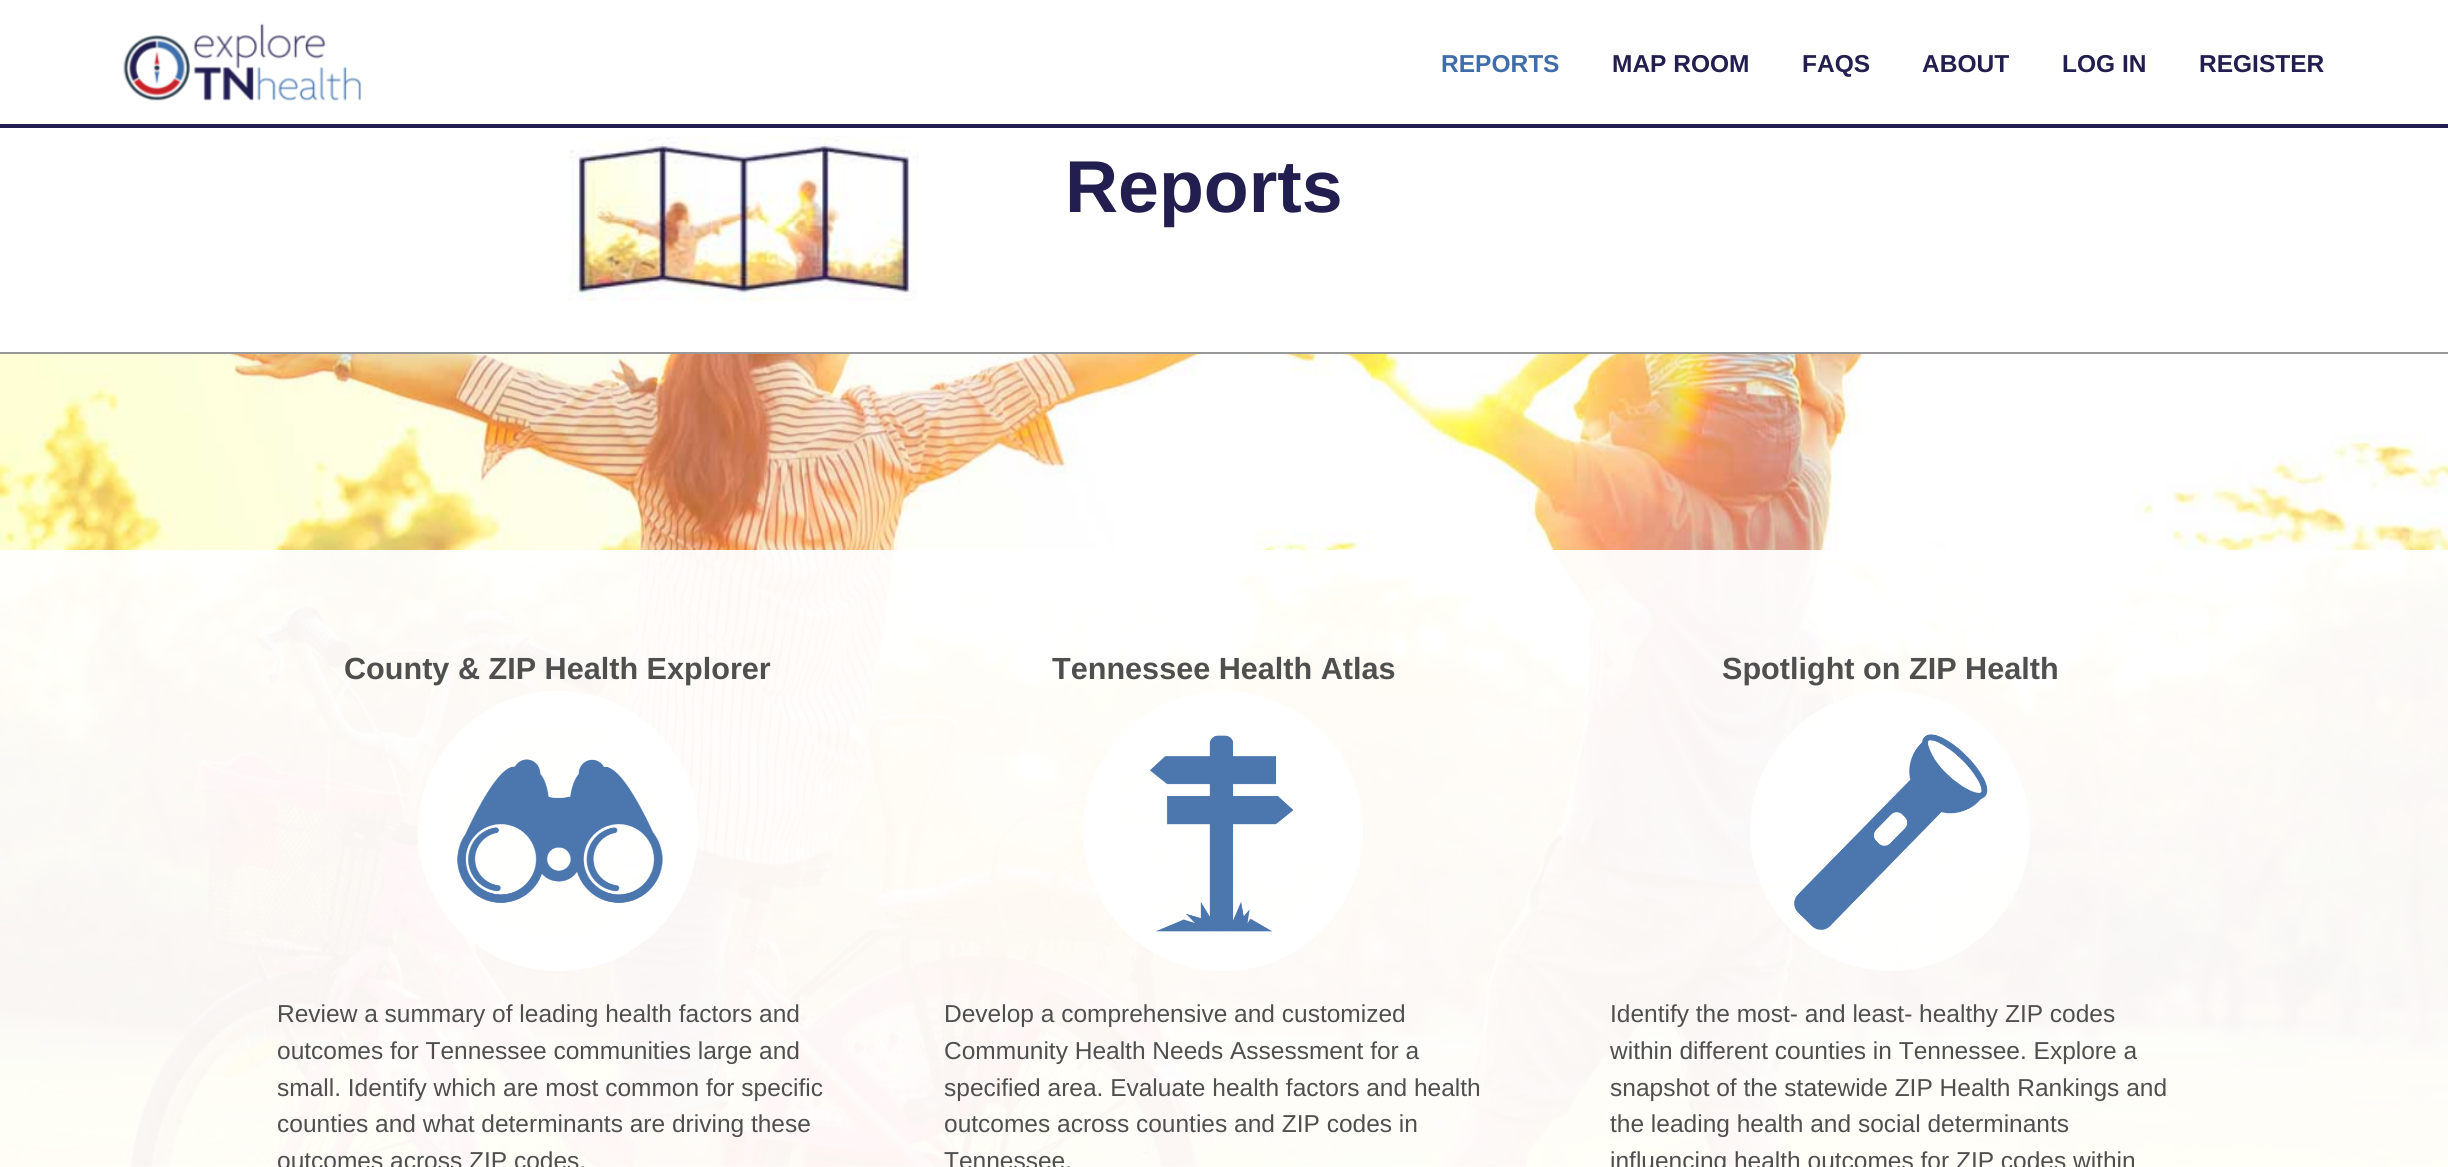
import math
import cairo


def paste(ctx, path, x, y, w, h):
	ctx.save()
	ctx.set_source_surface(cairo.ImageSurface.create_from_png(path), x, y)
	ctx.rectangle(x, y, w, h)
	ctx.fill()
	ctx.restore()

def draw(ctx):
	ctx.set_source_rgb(1, 1, 1)
	ctx.paint()
	ctx.set_source_rgb(0.133, 0.118, 0.314)
	ctx.rectangle(0, 124, 2448, 4)
	ctx.fill()
	paste(ctx, 'media/1.png', 123, 23, 239, 78)
	ctx.select_font_face('Liberation Sans', cairo.FONT_SLANT_NORMAL, cairo.FONT_WEIGHT_BOLD)
	ctx.set_font_size(24.5)
	ctx.set_source_rgb(0.247, 0.427, 0.663)
	ctx.move_to(1441, 72)
	ctx.show_text('REPORTS')
	ctx.set_source_rgb(0.133, 0.118, 0.314)
	for x, y, s in [
		(1612, 72, 'MAP ROOM'),
		(1802, 72, 'FAQS'),
		(1922, 72, 'ABOUT'),
		(2062, 72, 'LOG IN'),
		(2199, 72, 'REGISTER'),
	]:
		ctx.move_to(x, y)
		ctx.show_text(s)
	ctx.set_source_rgb(0.6, 0.6, 0.6)
	ctx.rectangle(0, 352, 2448, 2)
	ctx.fill()
	paste(ctx, 'media/2.png', 568, 136, 351, 165)
	ctx.set_font_size(73.5)
	ctx.set_source_rgb(0.133, 0.118, 0.314)
	ctx.move_to(1065, 212)
	ctx.show_text('Reports')
	paste(ctx, 'media/3.png', 0, 354, 2448, 813)
	ctx.set_source_rgba(1, 1, 1, 0.94)
	ctx.rectangle(0, 550, 2448, 617)
	ctx.fill()
	ctx.set_font_size(30.6)
	ctx.set_source_rgb(0.31, 0.31, 0.31)
	ctx.move_to(344, 679)
	ctx.show_text('County & ZIP Health Explorer')
	ctx.set_source_rgba(1, 1, 1, 0.94)
	ctx.new_path()
	ctx.arc(558, 831, 140, 0, 2 * math.pi)
	ctx.fill()
	ctx.arc(558, 831, 122.5, 0, 2 * math.pi)
	ctx.set_line_width(35)
	ctx.stroke()
	paste(ctx, 'media/4.png', 457, 759, 206, 144)
	ctx.select_font_face('Liberation Sans')
	ctx.set_font_size(24.5)
	ctx.set_source_rgb(0.31, 0.31, 0.31)
	for x, y, s in [
		(277, 1022, 'Review a summary of leading health factors and'),
		(277, 1059, 'outcomes for Tennessee communities large and'),
		(277, 1096, 'small. Identify which are most common for specific'),
		(277, 1132, 'counties and what determinants are driving these'),
		(277, 1169, 'outcomes across ZIP codes.'),
	]:
		ctx.move_to(x, y)
		ctx.show_text(s)
	ctx.select_font_face('Liberation Sans', cairo.FONT_SLANT_NORMAL, cairo.FONT_WEIGHT_BOLD)
	ctx.set_font_size(30.6)
	ctx.move_to(1052, 679)
	ctx.show_text('Tennessee Health Atlas')
	ctx.set_source_rgba(1, 1, 1, 0.94)
	ctx.new_path()
	ctx.arc(1223, 831, 140, 0, 2 * math.pi)
	ctx.fill()
	ctx.arc(1223, 831, 122.5, 0, 2 * math.pi)
	ctx.stroke()
	paste(ctx, 'media/5.png', 1150, 735, 144, 197)
	ctx.select_font_face('Liberation Sans')
	ctx.set_font_size(24.5)
	ctx.set_source_rgb(0.31, 0.31, 0.31)
	for x, y, s in [
		(944, 1022, 'Develop a comprehensive and customized'),
		(944, 1059, 'Community Health Needs Assessment for a'),
		(944, 1096, 'specified area. Evaluate health factors and health'),
		(944, 1132, 'outcomes across counties and ZIP codes in'),
		(944, 1169, 'Tennessee.'),
	]:
		ctx.move_to(x, y)
		ctx.show_text(s)
	ctx.select_font_face('Liberation Sans', cairo.FONT_SLANT_NORMAL, cairo.FONT_WEIGHT_BOLD)
	ctx.set_font_size(30.6)
	ctx.move_to(1722, 679)
	ctx.show_text('Spotlight on ZIP Health')
	ctx.set_source_rgba(1, 1, 1, 0.94)
	ctx.new_path()
	ctx.arc(1890, 831, 140, 0, 2 * math.pi)
	ctx.fill()
	paste(ctx, 'media/6.png', 1794, 734, 194, 196)
	ctx.select_font_face('Liberation Sans')
	ctx.set_font_size(24.5)
	ctx.set_source_rgb(0.31, 0.31, 0.31)
	for x, y, s in [
		(1610, 1022, 'Identify the most- and least- healthy ZIP codes'),
		(1610, 1059, 'within different counties in Tennessee. Explore a'),
		(1610, 1096, 'snapshot of the statewide ZIP Health Rankings and'),
		(1610, 1132, 'the leading health and social determinants'),
		(1610, 1169, 'influencing health outcomes for ZIP codes within'),
	]:
		ctx.move_to(x, y)
		ctx.show_text(s)


surface = cairo.ImageSurface(cairo.FORMAT_RGB24, 2448, 1167)
ctx = cairo.Context(surface)
options = cairo.FontOptions()
options.set_hint_metrics(cairo.HINT_METRICS_OFF)
options.set_hint_style(cairo.HINT_STYLE_NONE)
ctx.set_font_options(options)
ctx.set_miter_limit(4)
draw(ctx)
surface.write_to_png('image.png')
